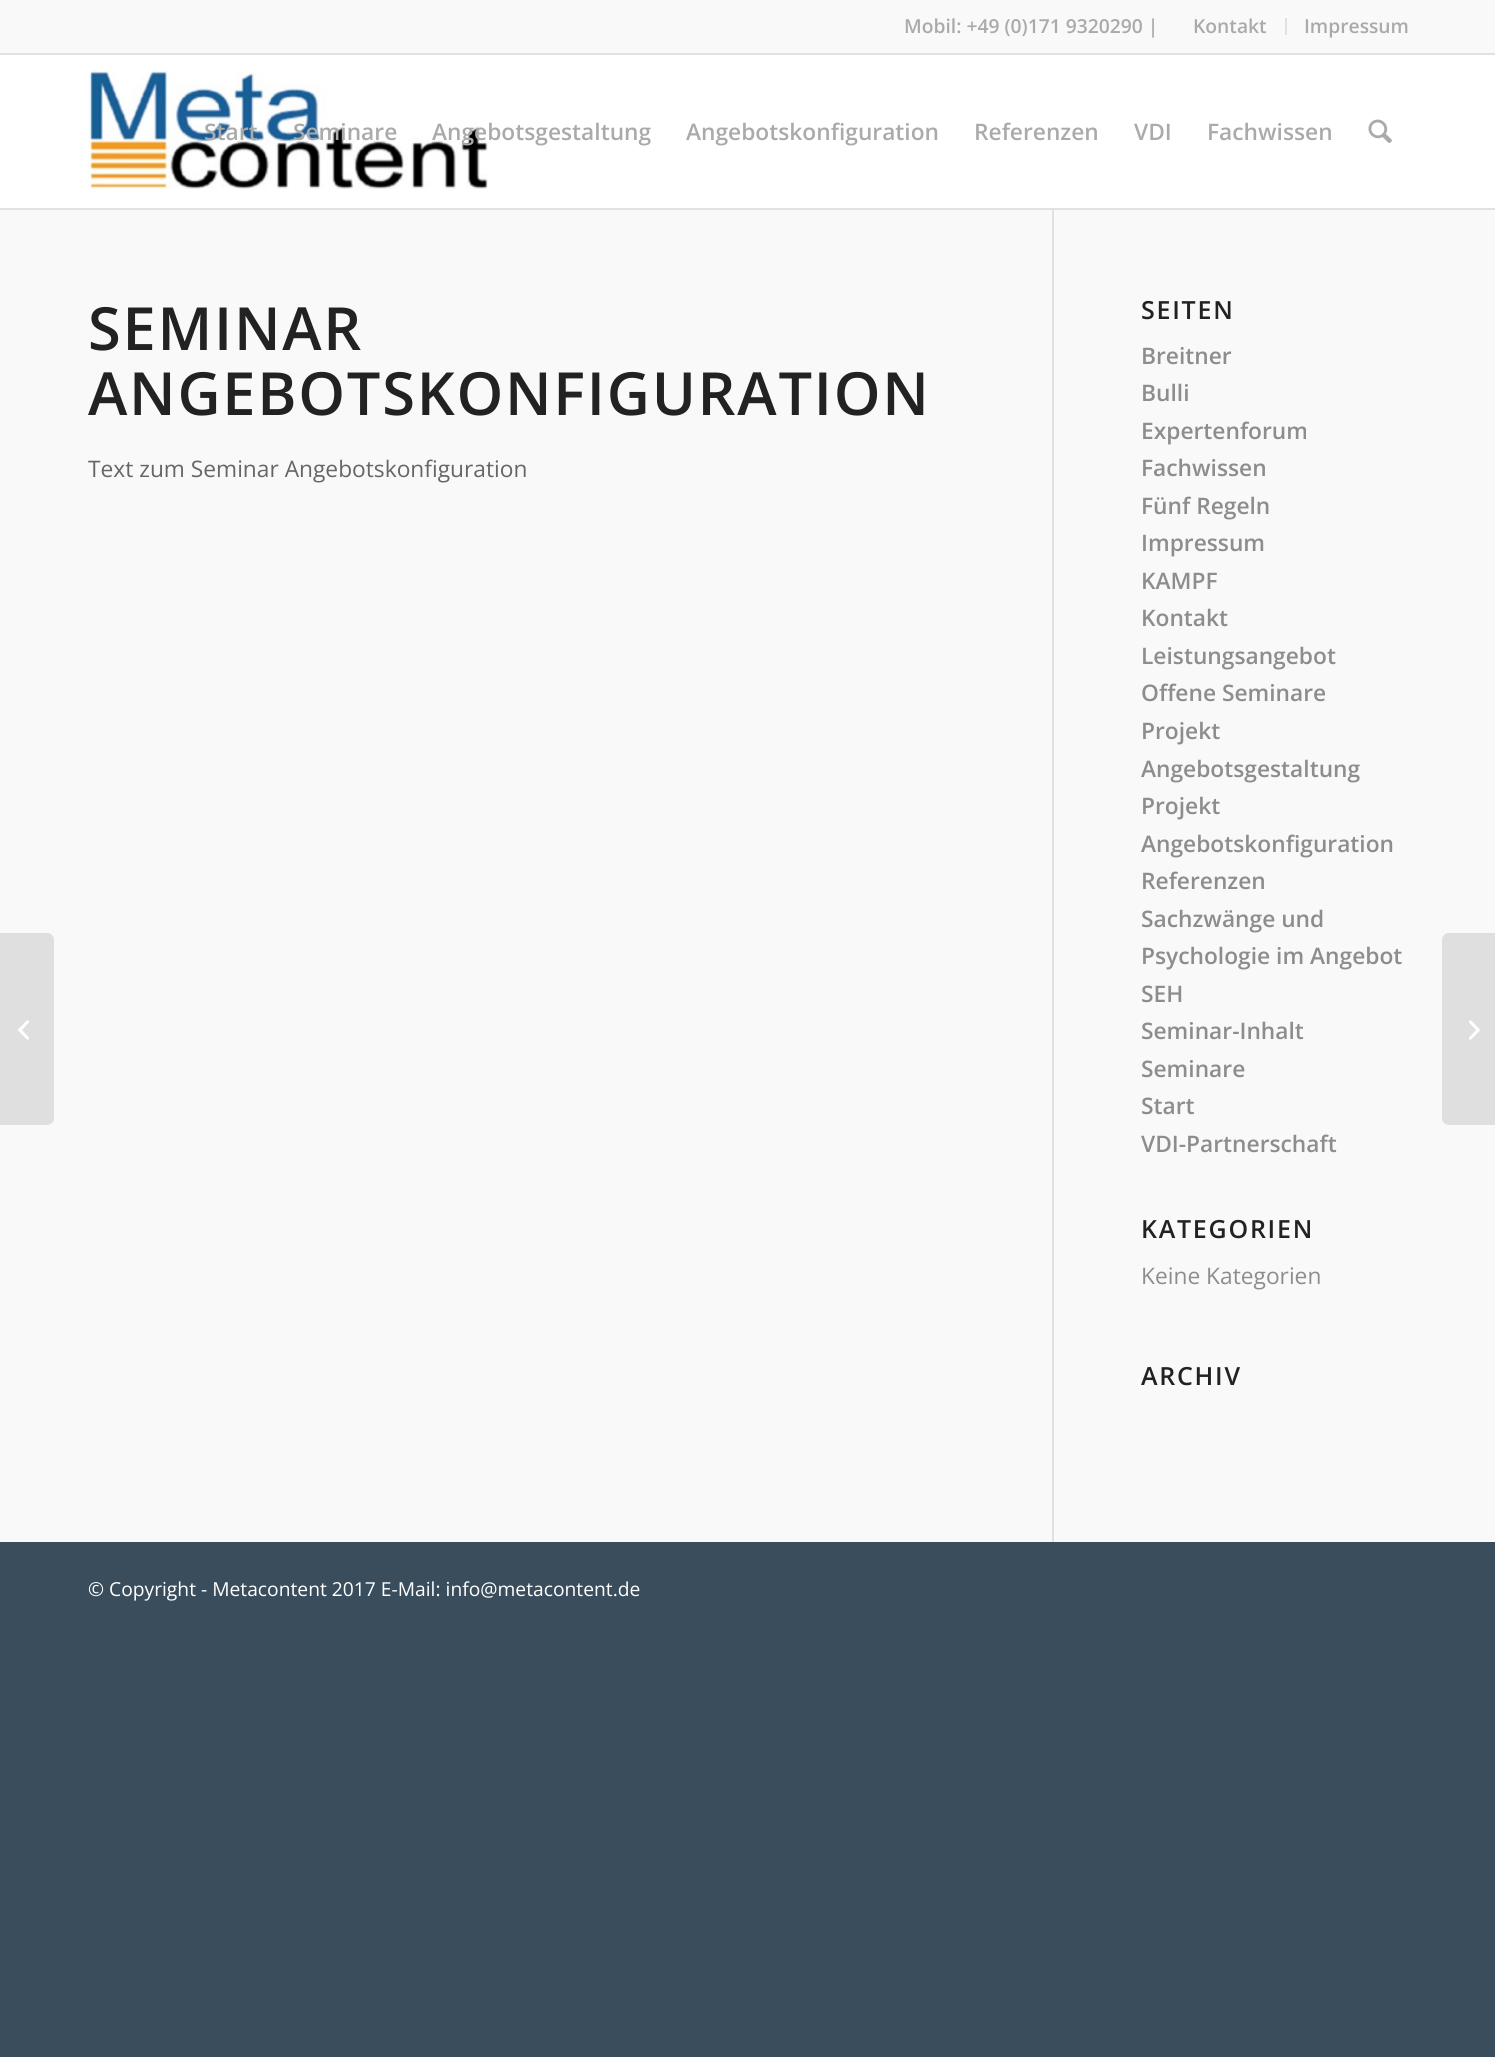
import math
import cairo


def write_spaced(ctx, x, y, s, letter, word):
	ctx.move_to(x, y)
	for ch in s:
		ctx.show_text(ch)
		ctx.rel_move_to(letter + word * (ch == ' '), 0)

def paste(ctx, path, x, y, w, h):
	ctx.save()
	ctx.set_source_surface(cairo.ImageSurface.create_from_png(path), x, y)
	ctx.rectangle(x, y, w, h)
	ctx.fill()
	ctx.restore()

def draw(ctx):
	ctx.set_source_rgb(0.227, 0.302, 0.361)
	ctx.paint()
	ctx.set_source_rgb(0.973, 0.973, 0.973)
	ctx.rectangle(0, 0, 1495, 53)
	ctx.fill()
	ctx.set_source_rgb(0.882, 0.882, 0.882)
	ctx.rectangle(0, 53, 1495, 2)
	ctx.fill()
	ctx.select_font_face('Open Sans SemiBold')
	ctx.set_font_size(19.25)
	ctx.set_source_rgb(0.667, 0.667, 0.667)
	ctx.move_to(904, 33)
	ctx.show_text('Mobil: +49 (0)171 9320290 |')
	ctx.set_source_rgb(0.882, 0.882, 0.882)
	ctx.rectangle(1285, 18, 2, 17)
	ctx.fill()
	ctx.set_source_rgb(0.667, 0.667, 0.667)
	ctx.move_to(1193, 33)
	ctx.show_text('Kontakt')
	ctx.move_to(1304, 33)
	ctx.show_text('Impressum')
	ctx.set_source_rgb(1, 1, 1)
	ctx.rectangle(0, 55, 1495, 153)
	ctx.fill()
	ctx.set_source_rgb(0.973, 0.973, 0.973)
	ctx.rectangle(0, 210, 1495, 1332)
	ctx.fill()
	ctx.set_source_rgb(0.882, 0.882, 0.882)
	ctx.rectangle(1052, 208, 2, 1336)
	ctx.rectangle(0, 208, 1495, 2)
	ctx.fill()
	paste(ctx, 'media/1.png', 88, 70, 400, 119)
	ctx.set_font_size(22.75)
	ctx.set_source_rgb(0.667, 0.667, 0.667)
	for x, y, s in [
		(204, 140, 'Start'),
		(293, 140, 'Seminare'),
		(432, 140, 'Angebotsgestaltung'),
		(686, 140, 'Angebotskonfiguration'),
		(974, 140, 'Referenzen'),
		(1134, 140, 'VDI'),
		(1207, 140, 'Fachwissen'),
	]:
		ctx.move_to(x, y)
		ctx.show_text(s)
	paste(ctx, 'media/2.png', 1368, 119, 24, 24)
	ctx.set_source_rgb(0.875, 0.875, 0.875)
	ctx.new_path()
	ctx.move_to(0, 933)
	ctx.line_to(47, 933)
	ctx.curve_to(51, 933, 54, 936, 54, 940)
	ctx.line_to(54, 1118)
	ctx.curve_to(54, 1122, 51, 1125, 47, 1125)
	ctx.line_to(0, 1125)
	ctx.close_path()
	ctx.fill()
	paste(ctx, 'media/3.png', 18, 1020, 11, 20)
	ctx.set_font_size(59.5)
	ctx.set_source_rgb(0.133, 0.133, 0.133)
	write_spaced(ctx, 88, 350, 'SEMINAR', 1.75, 0)
	write_spaced(ctx, 88, 415, 'ANGEBOTSKONFIGURATION', 1.75, 0)
	ctx.select_font_face('Open Sans')
	ctx.set_font_size(22.75)
	ctx.set_source_rgb(0.4, 0.4, 0.4)
	ctx.move_to(88, 477)
	ctx.show_text('Text zum Seminar Angebotskonfiguration')
	ctx.select_font_face('Open Sans SemiBold')
	ctx.set_font_size(25)
	ctx.set_source_rgb(0.133, 0.133, 0.133)
	write_spaced(ctx, 1141, 319, 'SEITEN', 1.75, 0)
	ctx.set_font_size(22.75)
	ctx.set_source_rgb(0.553, 0.553, 0.553)
	for x, y, s in [
		(1141, 364, 'Breitner'),
		(1141, 401, 'Bulli'),
		(1141, 439, 'Expertenforum'),
		(1141, 476, 'Fachwissen'),
		(1141, 514, 'Fünf Regeln'),
		(1141, 551, 'Impressum'),
		(1141, 589, 'KAMPF'),
		(1141, 626, 'Kontakt'),
		(1141, 664, 'Leistungsangebot'),
		(1141, 701, 'Offene Seminare'),
		(1141, 739, 'Projekt'),
		(1141, 777, 'Angebotsgestaltung'),
		(1141, 814, 'Projekt'),
		(1141, 852, 'Angebotskonfiguration'),
		(1141, 889, 'Referenzen'),
		(1141, 927, 'Sachzwänge und'),
		(1141, 964, 'Psychologie im Angebot'),
		(1141, 1002, 'SEH'),
		(1141, 1039, 'Seminar-Inhalt'),
		(1141, 1077, 'Seminare'),
		(1141, 1114, 'Start'),
		(1141, 1152, 'VDI-Partnerschaft'),
	]:
		ctx.move_to(x, y)
		ctx.show_text(s)
	ctx.set_font_size(25)
	ctx.set_source_rgb(0.133, 0.133, 0.133)
	write_spaced(ctx, 1141, 1238, 'KATEGORIEN', 1.75, 0)
	ctx.select_font_face('Open Sans')
	ctx.set_font_size(22.75)
	ctx.set_source_rgb(0.553, 0.553, 0.553)
	ctx.move_to(1141, 1284)
	ctx.show_text('Keine Kategorien')
	ctx.select_font_face('Open Sans SemiBold')
	ctx.set_font_size(25)
	ctx.set_source_rgb(0.133, 0.133, 0.133)
	write_spaced(ctx, 1141, 1385, 'ARCHIV', 1.75, 0)
	ctx.set_source_rgb(0.227, 0.302, 0.361)
	ctx.rectangle(1052, 1542, 2, 2)
	ctx.fill()
	ctx.select_font_face('Open Sans')
	ctx.set_font_size(19.25)
	ctx.set_source_rgb(1, 1, 1)
	ctx.move_to(88, 1596)
	ctx.show_text('© Copyright - Metacontent 2017 E-Mail: info@metacontent.de')
	ctx.set_source_rgb(0.875, 0.875, 0.875)
	ctx.new_path()
	ctx.move_to(1449, 933)
	ctx.line_to(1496, 933)
	ctx.line_to(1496, 1125)
	ctx.line_to(1449, 1125)
	ctx.curve_to(1445, 1125, 1442, 1122, 1442, 1118)
	ctx.line_to(1442, 940)
	ctx.curve_to(1442, 936, 1445, 933, 1449, 933)
	ctx.close_path()
	ctx.fill()
	paste(ctx, 'media/4.png', 1469, 1020, 11, 20)


surface = cairo.ImageSurface(cairo.FORMAT_RGB24, 1495, 2057)
ctx = cairo.Context(surface)
options = cairo.FontOptions()
options.set_hint_metrics(cairo.HINT_METRICS_OFF)
options.set_hint_style(cairo.HINT_STYLE_NONE)
ctx.set_font_options(options)
ctx.set_miter_limit(4)
draw(ctx)
surface.write_to_png('image.png')
